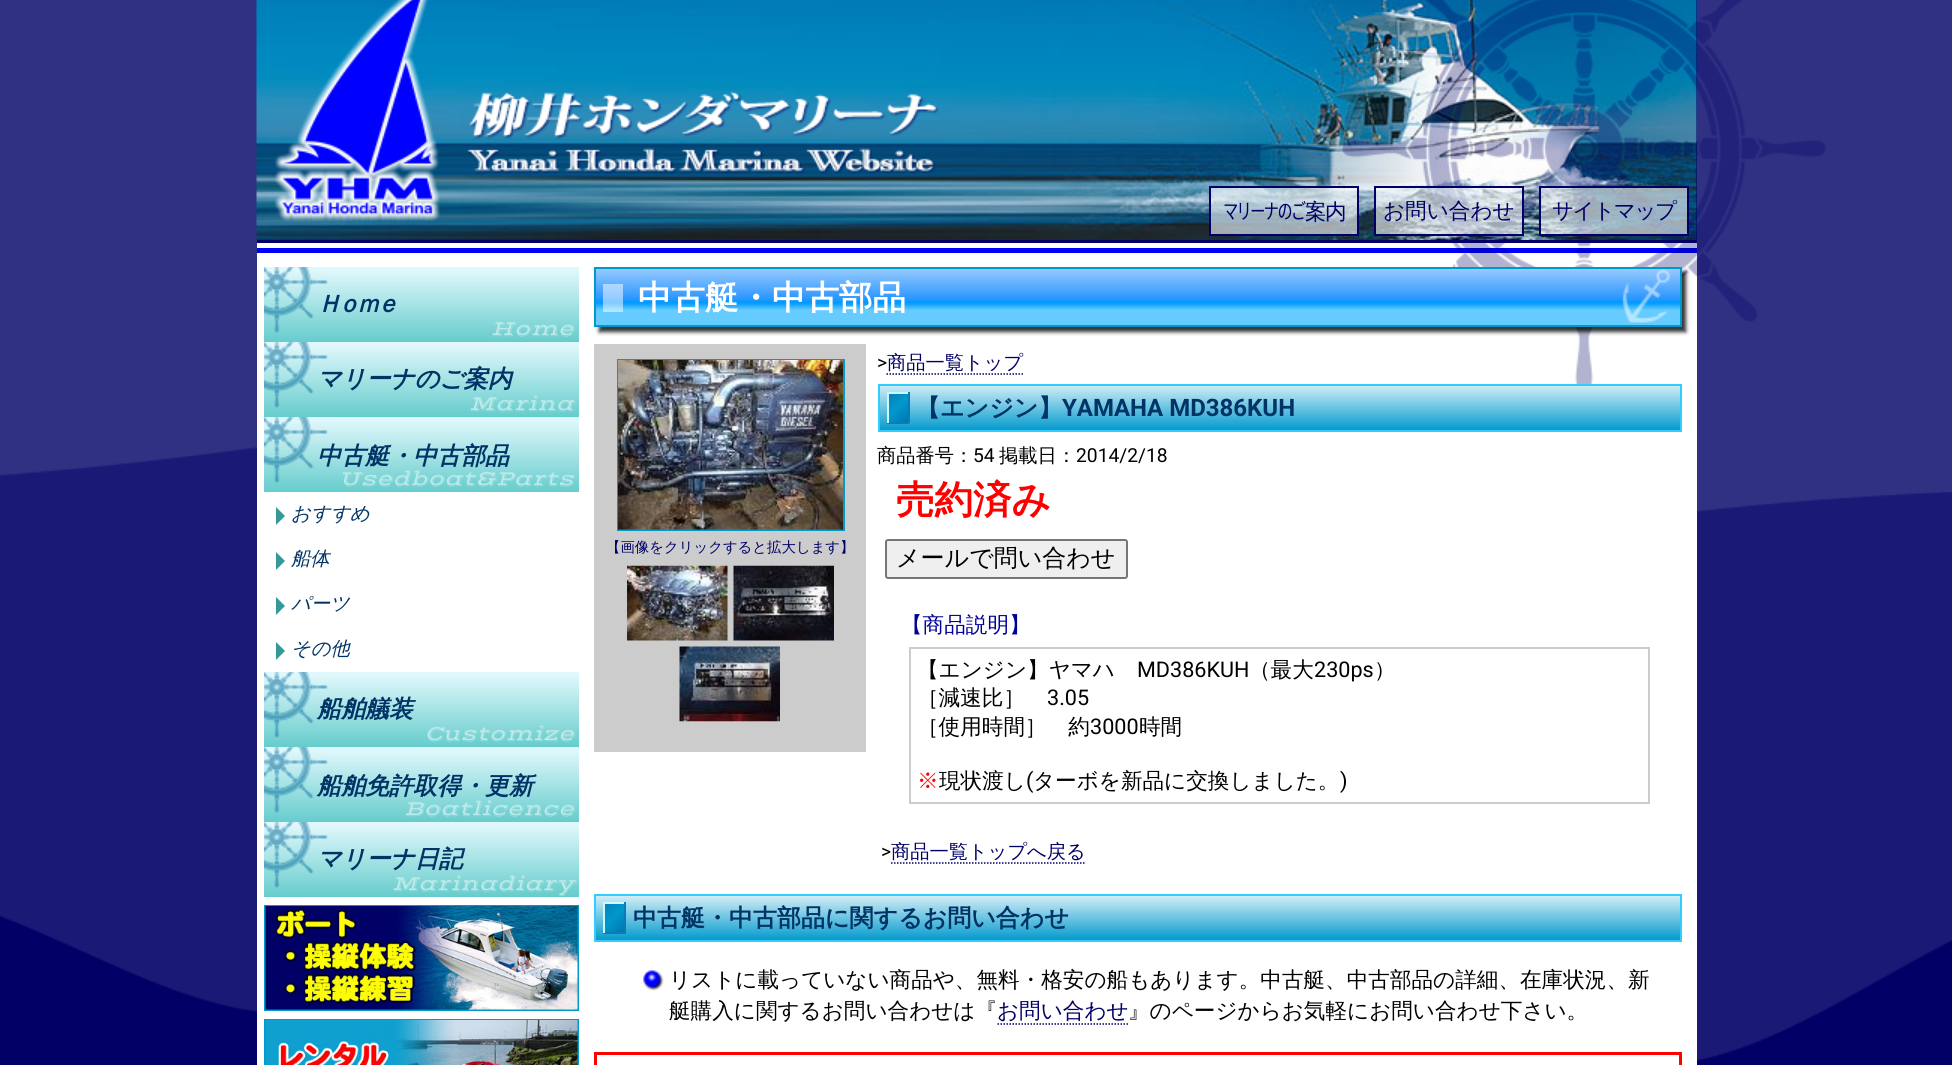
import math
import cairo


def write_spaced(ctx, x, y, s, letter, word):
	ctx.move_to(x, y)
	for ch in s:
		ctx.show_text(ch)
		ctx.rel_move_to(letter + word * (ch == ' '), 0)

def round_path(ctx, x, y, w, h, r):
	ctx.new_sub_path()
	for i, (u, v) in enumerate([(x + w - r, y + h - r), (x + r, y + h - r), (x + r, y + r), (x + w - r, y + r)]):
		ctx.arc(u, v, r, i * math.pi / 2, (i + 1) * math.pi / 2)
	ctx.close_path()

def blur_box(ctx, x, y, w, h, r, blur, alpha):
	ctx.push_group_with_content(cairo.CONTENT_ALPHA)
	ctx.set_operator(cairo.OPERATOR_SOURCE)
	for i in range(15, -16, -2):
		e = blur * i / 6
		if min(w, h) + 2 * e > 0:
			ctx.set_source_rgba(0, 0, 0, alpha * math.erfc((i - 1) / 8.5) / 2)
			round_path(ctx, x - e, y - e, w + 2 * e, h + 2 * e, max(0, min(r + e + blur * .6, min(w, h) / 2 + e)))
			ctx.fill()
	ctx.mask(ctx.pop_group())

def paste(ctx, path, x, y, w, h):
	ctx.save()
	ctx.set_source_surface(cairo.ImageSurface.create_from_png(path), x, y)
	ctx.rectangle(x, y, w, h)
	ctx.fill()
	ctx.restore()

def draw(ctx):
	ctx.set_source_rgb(1, 1, 1)
	ctx.paint()
	paste(ctx, 'media/1.png', 0, 0, 1952, 1065)
	ctx.set_source_rgb(1, 1, 1)
	ctx.rectangle(257, 253, 1440, 812)
	ctx.fill()
	ctx.set_source_rgb(0, 0, 0.4)
	ctx.rectangle(257, 0, 1440, 243)
	ctx.fill()
	paste(ctx, 'media/2.png', 256, 0, 1441, 240)
	ctx.set_source_rgb(0, 0, 1)
	ctx.rectangle(257, 248, 1440, 5)
	ctx.fill()
	ctx.set_source_rgb(1, 1, 1)
	ctx.rectangle(257, 243, 1440, 5)
	ctx.fill()
	paste(ctx, 'media/3.png', 274, 0, 665, 222)
	paste(ctx, 'media/12.png', 1342, 0, 484, 384)
	ctx.set_source_rgba(1, 1, 1, 0.6)
	ctx.rectangle(1210, 187, 148, 48)
	ctx.fill_preserve()
	ctx.set_source_rgb(0, 0, 0.4)
	ctx.stroke()
	ctx.select_font_face('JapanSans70')
	ctx.set_font_size(21.6)
	write_spaced(ctx, 1223, 219, 'マリーナのご', -1.5, 0)
	ctx.select_font_face('WenQuanYi Zen Hei Medium')
	write_spaced(ctx, 1305, 219, '案内', -1.5, 0)
	ctx.set_source_rgba(1, 1, 1, 0.6)
	ctx.rectangle(1375, 187, 148, 48)
	ctx.fill_preserve()
	ctx.set_source_rgb(0, 0, 0.4)
	ctx.stroke()
	ctx.move_to(1383, 218)
	ctx.show_text('お問い合わせ')
	ctx.set_source_rgba(1, 1, 1, 0.6)
	ctx.rectangle(1540, 187, 148, 48)
	ctx.fill_preserve()
	ctx.set_source_rgb(0, 0, 0.4)
	ctx.stroke()
	write_spaced(ctx, 1552, 218, 'サイトマップ', -1.5, 0)
	gradient = cairo.LinearGradient(422, 267, 422, 342)
	gradient.add_color_stop_rgba(0.04, 0.878, 0.973, 0.988, 1)
	gradient.add_color_stop_rgba(1, 0.4, 0.8, 0.8, 1)
	ctx.set_source(gradient)
	ctx.rectangle(264, 267, 315, 75)
	ctx.fill()
	ctx.select_font_face('WenQuanYi Zen Hei', cairo.FONT_SLANT_ITALIC, cairo.FONT_WEIGHT_BOLD)
	ctx.set_font_size(24)
	ctx.set_source_rgb(0, 0.2, 0.4)
	write_spaced(ctx, 317, 312, 'Ｈｏｍｅ', -4.5, 0)
	paste(ctx, 'media/4.png', 264, 267, 64, 66)
	ctx.select_font_face('Vast Shadow', cairo.FONT_SLANT_ITALIC)
	ctx.set_font_size(21)
	ctx.set_source_rgb(0.737, 0.914, 0.914)
	ctx.move_to(491, 335)
	ctx.show_text('Home')
	gradient = cairo.LinearGradient(422, 342, 422, 417)
	gradient.add_color_stop_rgba(0.04, 0.878, 0.973, 0.988, 1)
	gradient.add_color_stop_rgba(1, 0.4, 0.8, 0.8, 1)
	ctx.set_source(gradient)
	ctx.rectangle(264, 342, 315, 75)
	ctx.fill()
	ctx.select_font_face('WenQuanYi Zen Hei', cairo.FONT_SLANT_ITALIC, cairo.FONT_WEIGHT_BOLD)
	ctx.set_font_size(24)
	ctx.set_source_rgb(0, 0.2, 0.4)
	ctx.move_to(317, 387)
	ctx.show_text('マリーナのご案内')
	paste(ctx, 'media/5.png', 264, 342, 64, 66)
	ctx.select_font_face('Vast Shadow', cairo.FONT_SLANT_ITALIC)
	ctx.set_font_size(21)
	ctx.set_source_rgb(0.737, 0.914, 0.914)
	ctx.move_to(469, 410)
	ctx.show_text('Marina')
	gradient = cairo.LinearGradient(422, 417, 422, 492)
	gradient.add_color_stop_rgba(0.04, 0.878, 0.973, 0.988, 1)
	gradient.add_color_stop_rgba(1, 0.4, 0.8, 0.8, 1)
	ctx.set_source(gradient)
	ctx.rectangle(264, 417, 315, 75)
	ctx.fill()
	ctx.select_font_face('WenQuanYi Zen Hei', cairo.FONT_SLANT_ITALIC, cairo.FONT_WEIGHT_BOLD)
	ctx.set_font_size(24)
	ctx.set_source_rgb(0, 0.2, 0.4)
	ctx.move_to(317, 464)
	ctx.show_text('中古艇・中古部品')
	paste(ctx, 'media/6.png', 264, 417, 64, 66)
	ctx.select_font_face('Vast Shadow', cairo.FONT_SLANT_ITALIC)
	ctx.set_font_size(21)
	ctx.set_source_rgb(0.737, 0.914, 0.914)
	ctx.move_to(339, 485)
	ctx.show_text('Usedboat&Parts')
	ctx.set_source_rgb(0.2, 0.6, 0.6)
	ctx.new_path()
	ctx.move_to(276, 525)
	ctx.line_to(276, 507)
	ctx.line_to(285, 516)
	ctx.close_path()
	ctx.fill()
	ctx.select_font_face('WenQuanYi Zen Hei Medium', cairo.FONT_SLANT_ITALIC)
	ctx.set_font_size(19.25)
	ctx.set_source_rgb(0, 0.2, 0.4)
	ctx.move_to(291, 520)
	ctx.show_text('おすすめ')
	ctx.set_source_rgb(0.2, 0.6, 0.6)
	ctx.new_path()
	ctx.move_to(276, 570)
	ctx.line_to(276, 552)
	ctx.line_to(285, 561)
	ctx.close_path()
	ctx.fill()
	ctx.set_source_rgb(0, 0.2, 0.4)
	ctx.move_to(291, 565)
	ctx.show_text('船体')
	ctx.set_source_rgb(0.2, 0.6, 0.6)
	ctx.new_path()
	ctx.move_to(276, 615)
	ctx.line_to(276, 597)
	ctx.line_to(285, 606)
	ctx.close_path()
	ctx.fill()
	ctx.set_source_rgb(0, 0.2, 0.4)
	ctx.move_to(291, 610)
	ctx.show_text('パーツ')
	ctx.set_source_rgb(0.2, 0.6, 0.6)
	ctx.new_path()
	ctx.move_to(276, 660)
	ctx.line_to(276, 642)
	ctx.line_to(285, 651)
	ctx.close_path()
	ctx.fill()
	ctx.set_source_rgb(0, 0.2, 0.4)
	ctx.move_to(291, 655)
	ctx.show_text('その他')
	gradient = cairo.LinearGradient(422, 672, 422, 747)
	gradient.add_color_stop_rgba(0.04, 0.878, 0.973, 0.988, 1)
	gradient.add_color_stop_rgba(1, 0.4, 0.8, 0.8, 1)
	ctx.set_source(gradient)
	ctx.rectangle(264, 672, 315, 75)
	ctx.fill()
	ctx.select_font_face('WenQuanYi Zen Hei', cairo.FONT_SLANT_ITALIC, cairo.FONT_WEIGHT_BOLD)
	ctx.set_font_size(24)
	ctx.set_source_rgb(0, 0.2, 0.4)
	ctx.move_to(317, 717)
	ctx.show_text('船舶艤装')
	paste(ctx, 'media/7.png', 264, 672, 64, 66)
	ctx.select_font_face('Vast Shadow', cairo.FONT_SLANT_ITALIC)
	ctx.set_font_size(21)
	ctx.set_source_rgb(0.737, 0.914, 0.914)
	ctx.move_to(425, 740)
	ctx.show_text('Customize')
	gradient = cairo.LinearGradient(422, 747, 422, 822)
	gradient.add_color_stop_rgba(0.04, 0.878, 0.973, 0.988, 1)
	gradient.add_color_stop_rgba(1, 0.4, 0.8, 0.8, 1)
	ctx.set_source(gradient)
	ctx.rectangle(264, 747, 315, 75)
	ctx.fill()
	ctx.select_font_face('WenQuanYi Zen Hei', cairo.FONT_SLANT_ITALIC, cairo.FONT_WEIGHT_BOLD)
	ctx.set_font_size(24)
	ctx.set_source_rgb(0, 0.2, 0.4)
	ctx.move_to(317, 794)
	ctx.show_text('船舶免許取得・更新')
	paste(ctx, 'media/8.png', 264, 747, 64, 66)
	ctx.select_font_face('Vast Shadow', cairo.FONT_SLANT_ITALIC)
	ctx.set_font_size(21)
	ctx.set_source_rgb(0.737, 0.914, 0.914)
	ctx.move_to(404, 815)
	ctx.show_text('Boatlicence')
	gradient = cairo.LinearGradient(422, 822, 422, 897)
	gradient.add_color_stop_rgba(0.04, 0.878, 0.973, 0.988, 1)
	gradient.add_color_stop_rgba(1, 0.4, 0.8, 0.8, 1)
	ctx.set_source(gradient)
	ctx.rectangle(264, 822, 315, 75)
	ctx.fill()
	ctx.select_font_face('WenQuanYi Zen Hei', cairo.FONT_SLANT_ITALIC, cairo.FONT_WEIGHT_BOLD)
	ctx.set_font_size(24)
	ctx.set_source_rgb(0, 0.2, 0.4)
	ctx.move_to(317, 867)
	ctx.show_text('マリーナ日記')
	paste(ctx, 'media/5.png', 264, 822, 64, 66)
	ctx.select_font_face('Vast Shadow', cairo.FONT_SLANT_ITALIC)
	ctx.set_font_size(21)
	ctx.set_source_rgb(0.737, 0.914, 0.914)
	ctx.move_to(392, 890)
	ctx.show_text('Marinadiary')
	ctx.rectangle(265, 906, 313, 104)
	ctx.set_source_rgb(0, 0.6, 0.8)
	ctx.stroke()
	paste(ctx, 'media/9.png', 265, 906, 313, 104)
	ctx.rectangle(265, 1020, 313, 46)
	ctx.stroke()
	paste(ctx, 'media/10.png', 265, 1020, 313, 45)
	ctx.set_source_rgb(0, 0, 0)
	blur_box(ctx, 599, 272, 1087, 60, 0, 2, 0.8)
	gradient = cairo.LinearGradient(1138, 268, 1138, 326)
	gradient.add_color_stop_rgba(0, 0.6, 0.8, 1, 1)
	gradient.add_color_stop_rgba(0.5, 0.2, 0.6, 1, 1)
	gradient.add_color_stop_rgba(0.6, 0, 0.6, 1, 1)
	gradient.add_color_stop_rgba(0.73, 0.4, 0.8, 1, 1)
	ctx.set_source(gradient)
	ctx.rectangle(596, 269, 1084, 56)
	ctx.fill()
	ctx.rectangle(595, 268, 1086, 58)
	ctx.set_source_rgb(0, 0.6, 0.8)
	ctx.stroke()
	ctx.set_source_rgba(1, 1, 1, 0.5)
	ctx.rectangle(603, 284, 20, 28)
	ctx.fill()
	ctx.select_font_face('WenQuanYi Zen Hei', cairo.FONT_SLANT_NORMAL, cairo.FONT_WEIGHT_BOLD)
	ctx.set_font_size(33.5)
	ctx.set_source_rgb(1, 1, 1)
	ctx.move_to(638, 309)
	ctx.show_text('中古艇・中古部品')
	paste(ctx, 'media/11.png', 1622, 269, 48, 54)
	ctx.set_source_rgb(0.8, 0.8, 0.8)
	ctx.rectangle(594, 344, 272, 408)
	ctx.fill()
	ctx.rectangle(618, 360, 226, 170)
	ctx.set_source_rgb(0, 0.6, 0.8)
	ctx.stroke()
	paste(ctx, 'media/13.png', 618, 360, 225, 170)
	ctx.select_font_face('WenQuanYi Zen Hei Medium')
	ctx.set_font_size(14.4)
	ctx.set_source_rgb(0, 0, 0.4)
	ctx.move_to(606, 552)
	ctx.show_text('【画像をクリックすると拡大します】')
	paste(ctx, 'media/14.png', 627, 565, 101, 76)
	paste(ctx, 'media/15.png', 733, 565, 101, 76)
	paste(ctx, 'media/16.png', 679, 646, 101, 76)
	ctx.select_font_face('Roboto')
	ctx.set_font_size(19.25)
	ctx.set_source_rgb(0, 0, 0)
	ctx.move_to(877, 369)
	ctx.show_text('>')
	ctx.select_font_face('WenQuanYi Zen Hei Medium')
	ctx.set_source_rgb(0, 0, 0.4)
	ctx.move_to(887, 369)
	ctx.show_text('商品一覧トップ')
	ctx.new_path()
	ctx.move_to(886.5, 374)
	ctx.line_to(1023, 374)
	ctx.set_line_width(1.5)
	ctx.set_dash([1.5, 1.5])
	ctx.stroke()
	gradient = cairo.LinearGradient(1280, 385, 1280, 431)
	gradient.add_color_stop_rgba(0, 0.82, 0.929, 0.965, 1)
	gradient.add_color_stop_rgba(1, 0, 0.6, 0.8, 1)
	ctx.set_source(gradient)
	ctx.rectangle(880, 386, 800, 44)
	ctx.fill()
	ctx.rectangle(879, 385, 802, 46)
	ctx.set_source_rgb(0.2, 0.8, 1)
	ctx.set_line_width(2)
	ctx.set_dash([])
	ctx.stroke()
	gradient = cairo.LinearGradient(886, 395, 910, 419)
	gradient.add_color_stop_rgba(0, 0.031, 0.49, 0.725, 1)
	gradient.add_color_stop_rgba(0.5, 0, 0.6, 0.8, 1)
	gradient.add_color_stop_rgba(1, 0, 0.463, 0.706, 1)
	ctx.set_source(gradient)
	ctx.rectangle(889, 394, 19, 28)
	ctx.fill()
	ctx.set_source_rgb(0.796, 0.976, 0.988)
	ctx.rectangle(887, 392, 22, 2)
	ctx.fill()
	ctx.set_source_rgb(0.031, 0.49, 0.725)
	ctx.rectangle(908, 392, 2, 31)
	ctx.rectangle(887, 422, 22, 2)
	ctx.fill()
	ctx.set_source_rgb(0.796, 0.976, 0.988)
	ctx.rectangle(887, 392, 2, 31)
	ctx.fill()
	ctx.select_font_face('WenQuanYi Zen Hei', cairo.FONT_SLANT_NORMAL, cairo.FONT_WEIGHT_BOLD)
	ctx.set_font_size(24)
	ctx.set_source_rgb(0, 0.2, 0.4)
	ctx.move_to(916, 416)
	ctx.show_text('【エンジン】')
	ctx.select_font_face('Roboto', cairo.FONT_SLANT_NORMAL, cairo.FONT_WEIGHT_BOLD)
	ctx.move_to(1062, 416)
	ctx.show_text('YAMAHA MD386KUH')
	ctx.select_font_face('WenQuanYi Zen Hei Medium')
	ctx.set_font_size(19.25)
	ctx.set_source_rgb(0, 0, 0)
	ctx.move_to(877, 462)
	ctx.show_text('商品番号：')
	ctx.select_font_face('Roboto')
	ctx.move_to(973, 462)
	ctx.show_text('54')
	ctx.select_font_face('WenQuanYi Zen Hei Medium')
	ctx.move_to(999, 462)
	ctx.show_text('掲載日：')
	ctx.select_font_face('Roboto')
	ctx.move_to(1076, 462)
	ctx.show_text('2014/2/18')
	ctx.select_font_face('WenQuanYi Zen Hei', cairo.FONT_SLANT_NORMAL, cairo.FONT_WEIGHT_BOLD)
	ctx.set_font_size(38.5)
	ctx.set_source_rgb(1, 0, 0)
	ctx.move_to(896, 513)
	ctx.show_text('売約済み')
	ctx.set_source_rgb(0.937, 0.937, 0.937)
	round_path(ctx, 886, 540, 241, 38, 2)
	ctx.fill_preserve()
	ctx.set_source_rgb(0.463, 0.463, 0.463)
	ctx.stroke()
	ctx.select_font_face('WenQuanYi Zen Hei Medium')
	ctx.set_font_size(24)
	ctx.set_source_rgb(0, 0, 0)
	ctx.move_to(896, 566)
	ctx.show_text('メールで問い合わせ')
	ctx.set_font_size(21.6)
	ctx.set_source_rgb(0, 0, 0.6)
	ctx.move_to(901, 632)
	ctx.show_text('【商品説明】')
	ctx.rectangle(910, 648, 739, 155)
	ctx.set_source_rgb(0.8, 0.8, 0.8)
	ctx.stroke()
	ctx.set_source_rgb(0, 0, 0)
	ctx.move_to(917, 677)
	ctx.show_text('【エンジン】ヤマハ')
	ctx.select_font_face('Roboto')
	ctx.move_to(1137, 677)
	ctx.show_text('MD386KUH')
	ctx.select_font_face('WenQuanYi Zen Hei Medium')
	ctx.move_to(1249, 677)
	ctx.show_text('（最大')
	ctx.select_font_face('Roboto')
	ctx.move_to(1314, 677)
	ctx.show_text('230ps')
	ctx.select_font_face('WenQuanYi Zen Hei Medium')
	ctx.move_to(1374, 677)
	ctx.show_text('）')
	ctx.move_to(917, 705)
	ctx.show_text('［減速比］')
	ctx.select_font_face('Roboto')
	ctx.move_to(1047, 705)
	ctx.show_text('3.05')
	ctx.select_font_face('WenQuanYi Zen Hei Medium')
	ctx.move_to(917, 734)
	ctx.show_text('［使用時間］　約')
	ctx.select_font_face('Roboto')
	ctx.move_to(1090, 734)
	ctx.show_text('3000')
	ctx.select_font_face('WenQuanYi Zen Hei Medium')
	ctx.move_to(1139, 734)
	ctx.show_text('時間')
	ctx.set_source_rgb(1, 0, 0)
	ctx.move_to(917, 788)
	ctx.show_text('※')
	ctx.set_source_rgb(0, 0, 0)
	ctx.move_to(939, 788)
	ctx.show_text('現状渡し')
	ctx.select_font_face('Roboto')
	ctx.move_to(1026, 788)
	ctx.show_text('(')
	ctx.select_font_face('WenQuanYi Zen Hei Medium')
	ctx.move_to(1033, 788)
	ctx.show_text('ターボを新品に交換しました。')
	ctx.select_font_face('Roboto')
	ctx.move_to(1340, 788)
	ctx.show_text(')')
	ctx.set_font_size(19.25)
	ctx.move_to(881, 858)
	ctx.show_text('>')
	ctx.select_font_face('WenQuanYi Zen Hei Medium')
	ctx.set_source_rgb(0, 0, 0.4)
	ctx.move_to(891, 858)
	ctx.show_text('商品一覧トップへ戻る')
	ctx.new_path()
	ctx.move_to(891, 863)
	ctx.line_to(1086, 863)
	ctx.set_line_width(1.5)
	ctx.set_dash([1.5, 1.5])
	ctx.stroke()
	gradient = cairo.LinearGradient(1138, 896, 1138, 941)
	gradient.add_color_stop_rgba(0, 0.82, 0.929, 0.965, 1)
	gradient.add_color_stop_rgba(1, 0, 0.6, 0.8, 1)
	ctx.set_source(gradient)
	ctx.rectangle(596, 896, 1084, 44)
	ctx.fill()
	ctx.rectangle(595, 895, 1086, 46)
	ctx.set_source_rgb(0.2, 0.8, 1)
	ctx.set_line_width(2)
	ctx.set_dash([])
	ctx.stroke()
	gradient = cairo.LinearGradient(602, 905, 626, 929)
	gradient.add_color_stop_rgba(0, 0.031, 0.49, 0.725, 1)
	gradient.add_color_stop_rgba(0.5, 0, 0.6, 0.8, 1)
	gradient.add_color_stop_rgba(1, 0, 0.463, 0.706, 1)
	ctx.set_source(gradient)
	ctx.rectangle(605, 904, 19, 28)
	ctx.fill()
	ctx.set_source_rgb(0.796, 0.976, 0.988)
	ctx.rectangle(603, 902, 23, 2)
	ctx.fill()
	ctx.set_source_rgb(0.031, 0.49, 0.725)
	ctx.rectangle(624, 902, 2, 31)
	ctx.rectangle(603, 932, 23, 2)
	ctx.fill()
	ctx.set_source_rgb(0.796, 0.976, 0.988)
	ctx.rectangle(603, 902, 2, 31)
	ctx.fill()
	ctx.select_font_face('WenQuanYi Zen Hei', cairo.FONT_SLANT_NORMAL, cairo.FONT_WEIGHT_BOLD)
	ctx.set_font_size(24)
	ctx.set_source_rgb(0, 0.2, 0.4)
	ctx.move_to(633, 926)
	ctx.show_text('中古艇・中古部品に関するお問い合わせ')
	paste(ctx, 'media/17.png', 643, 970, 21, 21)
	ctx.select_font_face('WenQuanYi Zen Hei Medium')
	ctx.set_font_size(21.6)
	ctx.set_source_rgb(0, 0, 0)
	ctx.move_to(669, 987)
	ctx.show_text('リストに載っていない商品や、無料・格安の船もあります。中古艇、中古部品の詳細、在庫状況、新')
	ctx.move_to(669, 1018)
	ctx.show_text('艇購入に関するお問い合わせは『')
	ctx.set_source_rgb(0, 0, 0.4)
	ctx.move_to(997, 1018)
	ctx.show_text('お問い合わせ')
	ctx.new_path()
	ctx.move_to(997.5, 1024)
	ctx.line_to(1128, 1024)
	ctx.set_line_width(1.5)
	ctx.set_dash([1.5, 1.5])
	ctx.stroke()
	ctx.set_source_rgb(0, 0, 0)
	ctx.move_to(1128, 1018)
	ctx.show_text('』のページからお気軽にお問い合わせ下さい。')
	ctx.rectangle(595.5, 1053.5, 1085, 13)
	ctx.set_source_rgb(1, 0, 0)
	ctx.set_line_width(3)
	ctx.set_dash([])
	ctx.stroke()


surface = cairo.ImageSurface(cairo.FORMAT_RGB24, 1952, 1065)
ctx = cairo.Context(surface)
options = cairo.FontOptions()
options.set_hint_metrics(cairo.HINT_METRICS_OFF)
options.set_hint_style(cairo.HINT_STYLE_NONE)
ctx.set_font_options(options)
ctx.set_miter_limit(4)
draw(ctx)
surface.write_to_png('image.png')
